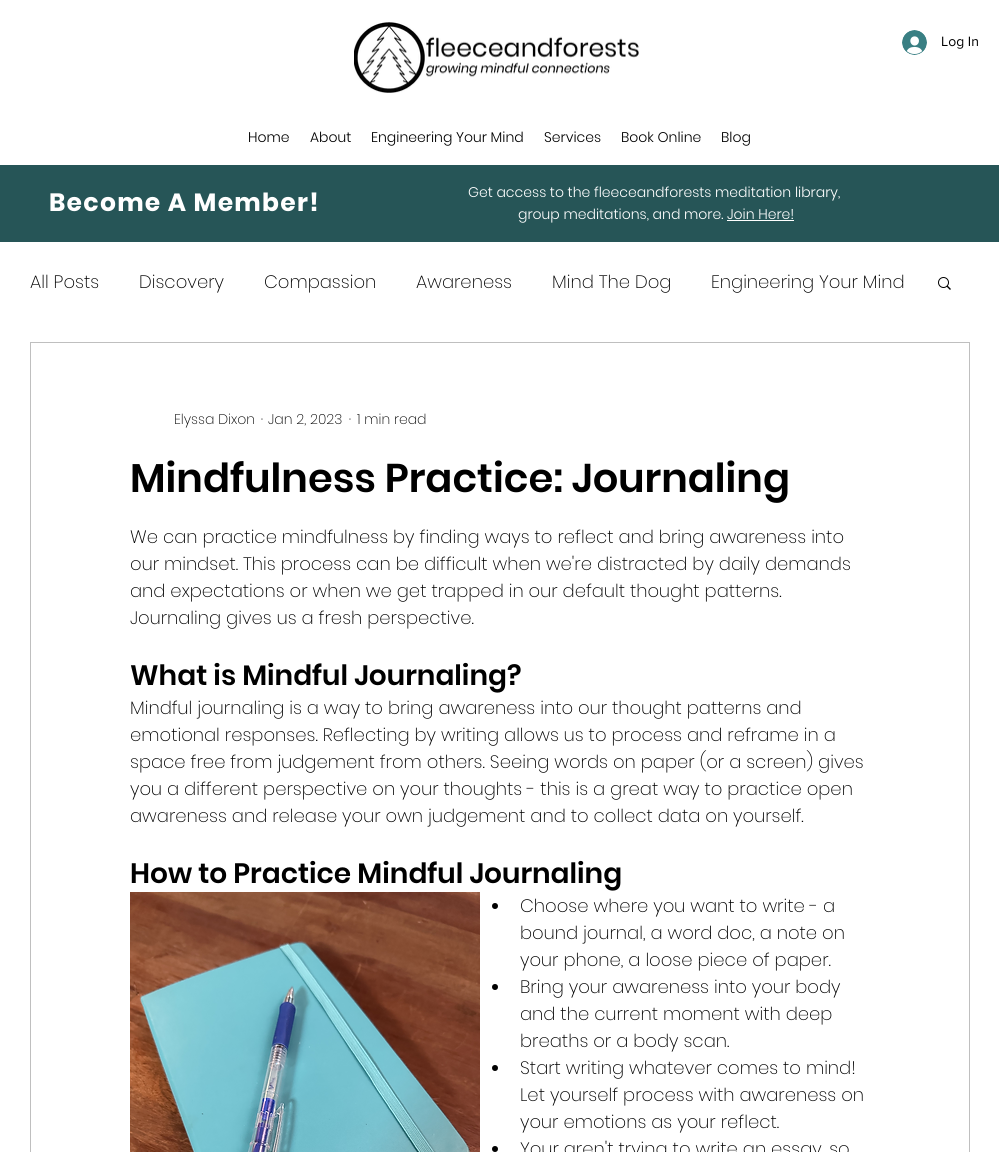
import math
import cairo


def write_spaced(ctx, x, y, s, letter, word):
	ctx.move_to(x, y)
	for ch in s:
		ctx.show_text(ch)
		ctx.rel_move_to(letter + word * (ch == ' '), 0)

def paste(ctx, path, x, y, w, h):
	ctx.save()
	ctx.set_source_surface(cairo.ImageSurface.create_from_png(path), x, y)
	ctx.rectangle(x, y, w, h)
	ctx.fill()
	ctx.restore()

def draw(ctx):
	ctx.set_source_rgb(1, 1, 1)
	ctx.paint()
	paste(ctx, 'media/1.png', 354, 22, 285, 71)
	paste(ctx, 'media/2.png', 902, 30, 25, 25)
	ctx.select_font_face('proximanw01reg')
	ctx.set_font_size(14)
	ctx.set_source_rgb(0, 0, 0)
	ctx.move_to(941, 46)
	ctx.show_text('Log In')
	ctx.select_font_face('Poppins Light')
	for x, y, s in [
		(248, 142, 'Home'),
		(310, 142, 'About'),
		(371, 142, 'Engineering Your Mind'),
		(544, 142, 'Services'),
		(621, 142, 'Book Online'),
		(721, 142, 'Blog'),
	]:
		ctx.move_to(x, y)
		ctx.show_text(s)
	ctx.set_source_rgb(0.149, 0.333, 0.341)
	ctx.rectangle(0, 165, 999, 77)
	ctx.fill()
	ctx.select_font_face('Poppins', cairo.FONT_SLANT_NORMAL, cairo.FONT_WEIGHT_BOLD)
	ctx.set_font_size(25)
	ctx.set_source_rgb(1, 1, 1)
	write_spaced(ctx, 49, 211, 'Become A Member!', 1.25, 0)
	ctx.select_font_face('Poppins Light')
	ctx.set_font_size(14)
	ctx.move_to(468, 197)
	ctx.show_text('Get access to the fleeceandforests meditation library,')
	ctx.move_to(518, 219)
	ctx.show_text('group meditations, and more. Join Here!')
	ctx.rectangle(727, 220, 67, 1)
	ctx.fill()
	ctx.select_font_face('Poppins ExtraLight')
	ctx.set_font_size(18)
	ctx.set_source_rgb(0, 0, 0)
	for x, y, s in [
		(30, 288, 'All Posts'),
		(139, 288, 'Discovery'),
		(264, 288, 'Compassion'),
		(416, 288, 'Awareness'),
		(552, 288, 'Mind The Dog'),
		(711, 288, 'Engineering Your Mind'),
	]:
		ctx.move_to(x, y)
		ctx.show_text(s)
	paste(ctx, 'media/3.png', 938, 277, 13, 13)
	ctx.rectangle(30.5, 342.5, 939, 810)
	ctx.set_source_rgb(0.749, 0.749, 0.749)
	ctx.set_line_width(1)
	ctx.stroke()
	ctx.set_font_size(14)
	ctx.set_source_rgb(0, 0, 0)
	for x, y, s in [
		(174, 424, 'Elyssa Dixon'),
		(261, 424, '·'),
		(268, 424, 'Jan 2, 2023'),
		(349, 424, '·'),
		(357, 424, '1 min read'),
	]:
		ctx.move_to(x, y)
		ctx.show_text(s)
	ctx.select_font_face('Poppins SemiBold')
	ctx.set_font_size(40)
	ctx.move_to(130, 492)
	ctx.show_text('Mindfulness Practice: Journaling')
	ctx.select_font_face('Poppins ExtraLight')
	ctx.set_font_size(18)
	for x, y, s in [
		(130, 543, 'We can practice mindfulness by finding ways to reflect and bring awareness into'),
		(130, 570, 'our mindset. This process can be difficult when we\'re distracted by daily demands'),
		(130, 597, 'and expectations or when we get trapped in our default thought patterns.'),
		(130, 624, 'Journaling gives us a fresh perspective.'),
	]:
		ctx.move_to(x, y)
		ctx.show_text(s)
	ctx.select_font_face('Poppins SemiBold')
	ctx.set_font_size(28)
	ctx.move_to(130, 685)
	ctx.show_text('What is Mindful Journaling?')
	ctx.select_font_face('Poppins ExtraLight')
	ctx.set_font_size(18)
	for x, y, s in [
		(130, 714, 'Mindful journaling is a way to bring awareness into our thought patterns and'),
		(130, 741, 'emotional responses. Reflecting by writing allows us to process and reframe in a'),
		(130, 768, 'space free from judgement from others. Seeing words on paper (or a screen) gives'),
		(130, 795, 'you a different perspective on your thoughts - this is a great way to practice open'),
		(130, 822, 'awareness and release your own judgement and to collect data on yourself.'),
	]:
		ctx.move_to(x, y)
		ctx.show_text(s)
	ctx.select_font_face('Poppins SemiBold')
	ctx.set_font_size(28)
	ctx.move_to(130, 883)
	ctx.show_text('How to Practice Mindful Journaling')
	paste(ctx, 'media/4.png', 130, 892, 350, 260)
	ctx.arc(495, 906, 3, 0, 2 * math.pi)
	ctx.fill()
	ctx.select_font_face('Poppins ExtraLight')
	ctx.set_font_size(18)
	for x, y, s in [
		(520, 912, 'Choose where you want to write - a'),
		(520, 939, 'bound journal, a word doc, a note on'),
		(520, 966, 'your phone, a loose piece of paper.'),
	]:
		ctx.move_to(x, y)
		ctx.show_text(s)
	ctx.new_path()
	ctx.arc(495, 987, 3, 0, 2 * math.pi)
	ctx.fill()
	for x, y, s in [
		(520, 993, 'Bring your awareness into your body'),
		(520, 1020, 'and the current moment with deep'),
		(520, 1047, 'breaths or a body scan.'),
	]:
		ctx.move_to(x, y)
		ctx.show_text(s)
	ctx.new_path()
	ctx.arc(495, 1068, 3, 0, 2 * math.pi)
	ctx.fill()
	for x, y, s in [
		(520, 1074, 'Start writing whatever comes to mind!'),
		(520, 1101, 'Let yourself process with awareness on'),
		(520, 1128, 'your emotions as your reflect.'),
	]:
		ctx.move_to(x, y)
		ctx.show_text(s)
	ctx.new_path()
	ctx.arc(495, 1149, 3, 0, 2 * math.pi)
	ctx.fill()
	ctx.move_to(520, 1155)
	ctx.show_text('Your aren\'t trying to write an essay, so')


surface = cairo.ImageSurface(cairo.FORMAT_RGB24, 999, 1152)
ctx = cairo.Context(surface)
options = cairo.FontOptions()
options.set_hint_metrics(cairo.HINT_METRICS_OFF)
options.set_hint_style(cairo.HINT_STYLE_NONE)
ctx.set_font_options(options)
ctx.set_miter_limit(4)
draw(ctx)
surface.write_to_png('image.png')
